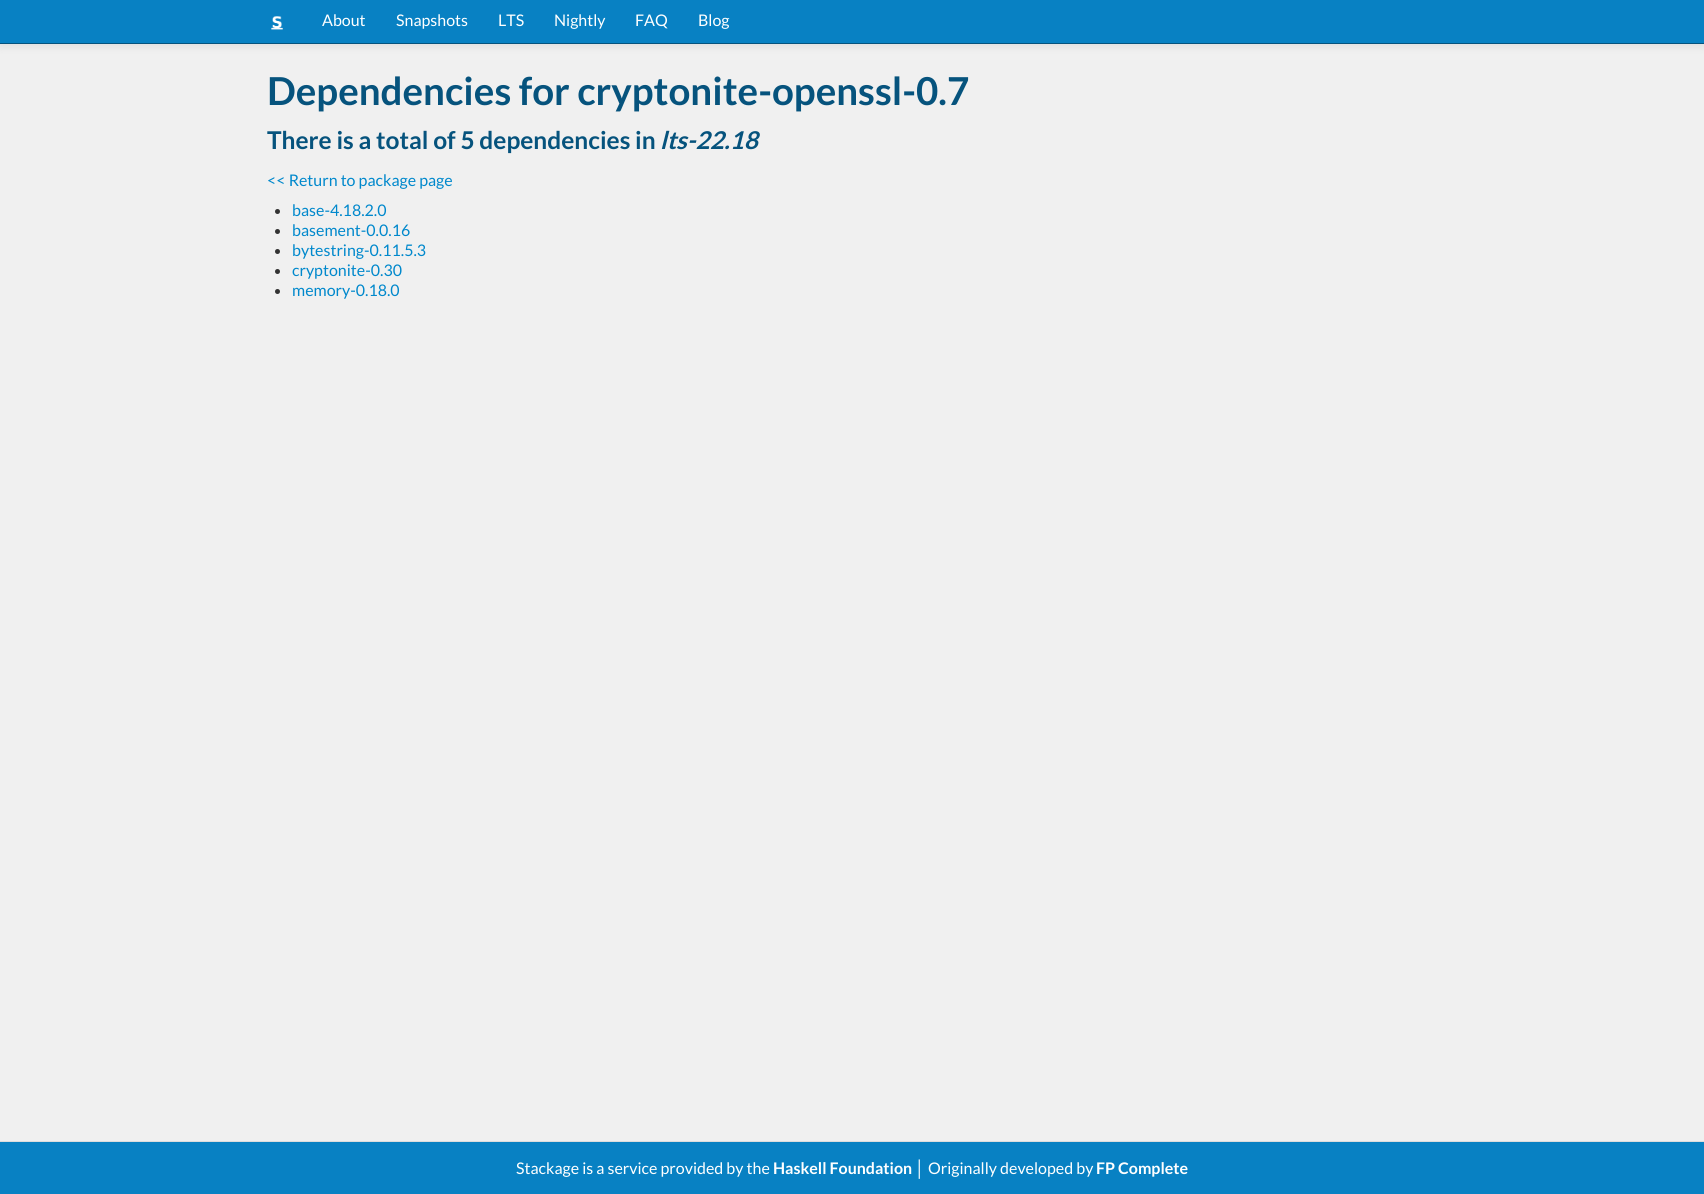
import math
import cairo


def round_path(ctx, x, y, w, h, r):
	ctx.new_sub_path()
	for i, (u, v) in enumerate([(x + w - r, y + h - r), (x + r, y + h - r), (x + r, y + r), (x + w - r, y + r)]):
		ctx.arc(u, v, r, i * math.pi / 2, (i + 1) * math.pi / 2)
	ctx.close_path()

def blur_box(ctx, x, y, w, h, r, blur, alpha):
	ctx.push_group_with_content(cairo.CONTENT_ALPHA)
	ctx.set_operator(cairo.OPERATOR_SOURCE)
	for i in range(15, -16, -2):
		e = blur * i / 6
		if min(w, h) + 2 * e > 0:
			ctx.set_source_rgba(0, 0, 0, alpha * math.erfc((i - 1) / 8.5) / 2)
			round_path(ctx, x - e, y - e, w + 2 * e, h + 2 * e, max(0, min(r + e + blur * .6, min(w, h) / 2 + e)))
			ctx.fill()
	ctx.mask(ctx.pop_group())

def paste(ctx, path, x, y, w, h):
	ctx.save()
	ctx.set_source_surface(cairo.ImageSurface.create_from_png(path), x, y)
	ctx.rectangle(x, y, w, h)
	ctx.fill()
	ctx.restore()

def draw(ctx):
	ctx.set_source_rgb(0.941, 0.941, 0.941)
	ctx.paint()
	ctx.set_source_rgb(0, 0, 0)
	blur_box(ctx, 0, 1, 1704, 44, 0, 5, 0.1)
	ctx.set_source_rgb(0.035, 0.506, 0.765)
	ctx.rectangle(0, 0, 1704, 43)
	ctx.fill()
	ctx.set_source_rgb(0.024, 0.325, 0.49)
	ctx.rectangle(0, 43, 1704, 1)
	ctx.fill()
	paste(ctx, 'media/1.png', 271, 16, 12, 14)
	ctx.select_font_face('Lato')
	ctx.set_font_size(16)
	ctx.set_source_rgb(1, 1, 1)
	for x, y, s in [
		(322, 26, 'About'),
		(396, 26, 'Snapshots'),
		(498, 26, 'LTS'),
		(554, 26, 'Nightly'),
		(635, 26, 'FAQ'),
		(698, 26, 'Blog'),
	]:
		ctx.move_to(x, y)
		ctx.show_text(s)
	ctx.select_font_face('Lato', cairo.FONT_SLANT_NORMAL, cairo.FONT_WEIGHT_BOLD)
	ctx.set_font_size(38.5)
	ctx.set_source_rgb(0.024, 0.325, 0.49)
	ctx.move_to(267, 105)
	ctx.show_text('Dependencies for cryptonite-openssl-0.7')
	ctx.set_font_size(24.5)
	ctx.move_to(267, 149)
	ctx.show_text('There is a total of 5 dependencies in')
	ctx.select_font_face('Lato', cairo.FONT_SLANT_ITALIC, cairo.FONT_WEIGHT_BOLD)
	ctx.move_to(660, 149)
	ctx.show_text('lts-22.18')
	ctx.select_font_face('Lato')
	ctx.set_font_size(16)
	ctx.set_source_rgb(0, 0.533, 0.8)
	ctx.move_to(267, 186)
	ctx.show_text('<< Return to package page')
	ctx.set_source_rgb(0.2, 0.2, 0.2)
	ctx.new_path()
	ctx.arc(277.5, 211.5, 2.5, 0, 2 * math.pi)
	ctx.fill()
	ctx.set_source_rgb(0, 0.533, 0.8)
	ctx.move_to(292, 216)
	ctx.show_text('base-4.18.2.0')
	ctx.set_source_rgb(0.2, 0.2, 0.2)
	ctx.new_path()
	ctx.arc(277.5, 231.5, 2.5, 0, 2 * math.pi)
	ctx.fill()
	ctx.set_source_rgb(0, 0.533, 0.8)
	ctx.move_to(292, 236)
	ctx.show_text('basement-0.0.16')
	ctx.set_source_rgb(0.2, 0.2, 0.2)
	ctx.new_path()
	ctx.arc(277.5, 251.5, 2.5, 0, 2 * math.pi)
	ctx.fill()
	ctx.set_source_rgb(0, 0.533, 0.8)
	ctx.move_to(292, 256)
	ctx.show_text('bytestring-0.11.5.3')
	ctx.set_source_rgb(0.2, 0.2, 0.2)
	ctx.new_path()
	ctx.arc(277.5, 271.5, 2.5, 0, 2 * math.pi)
	ctx.fill()
	ctx.set_source_rgb(0, 0.533, 0.8)
	ctx.move_to(292, 276)
	ctx.show_text('cryptonite-0.30')
	ctx.set_source_rgb(0.2, 0.2, 0.2)
	ctx.new_path()
	ctx.arc(277.5, 291.5, 2.5, 0, 2 * math.pi)
	ctx.fill()
	ctx.set_source_rgb(0, 0.533, 0.8)
	ctx.move_to(292, 296)
	ctx.show_text('memory-0.18.0')
	ctx.set_source_rgb(0.035, 0.506, 0.765)
	ctx.rectangle(0, 1142, 1704, 52)
	ctx.fill()
	ctx.set_source_rgb(0.867, 0.867, 0.867)
	ctx.rectangle(0, 1141, 1704, 1)
	ctx.fill()
	ctx.set_source_rgb(1, 1, 1)
	ctx.move_to(516, 1174)
	ctx.show_text('Stackage is a service provided by the')
	ctx.select_font_face('Lato', cairo.FONT_SLANT_NORMAL, cairo.FONT_WEIGHT_BOLD)
	ctx.move_to(773, 1174)
	ctx.show_text('Haskell Foundation')
	ctx.select_font_face('Liberation Sans')
	ctx.move_to(915, 1174)
	ctx.show_text('│')
	ctx.select_font_face('Lato')
	ctx.move_to(928, 1174)
	ctx.show_text('Originally developed by')
	ctx.select_font_face('Lato', cairo.FONT_SLANT_NORMAL, cairo.FONT_WEIGHT_BOLD)
	ctx.move_to(1096, 1174)
	ctx.show_text('FP Complete')


surface = cairo.ImageSurface(cairo.FORMAT_RGB24, 1704, 1194)
ctx = cairo.Context(surface)
options = cairo.FontOptions()
options.set_hint_metrics(cairo.HINT_METRICS_OFF)
options.set_hint_style(cairo.HINT_STYLE_NONE)
ctx.set_font_options(options)
ctx.set_miter_limit(4)
draw(ctx)
surface.write_to_png('image.png')
